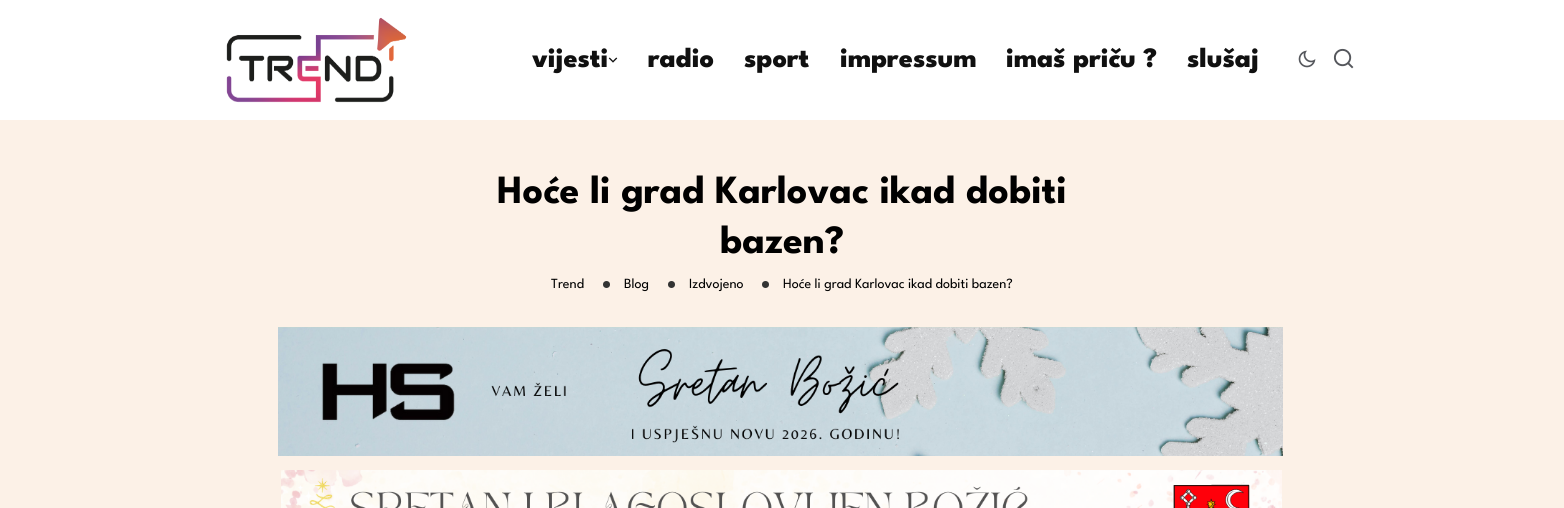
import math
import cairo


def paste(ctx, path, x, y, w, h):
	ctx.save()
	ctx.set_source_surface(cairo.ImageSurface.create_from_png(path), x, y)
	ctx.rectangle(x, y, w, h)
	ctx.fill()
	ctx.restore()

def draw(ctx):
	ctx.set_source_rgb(0.988, 0.945, 0.906)
	ctx.paint()
	ctx.set_source_rgb(1, 1, 1)
	ctx.rectangle(0, 0, 1564, 120)
	ctx.fill()
	paste(ctx, 'media/1.png', 226, 17, 181, 86)
	ctx.select_font_face('League Spartan ExtraBold')
	ctx.set_font_size(28)
	ctx.set_source_rgb(0.063, 0.063, 0.063)
	ctx.move_to(532, 67)
	ctx.show_text('vijesti')
	paste(ctx, 'media/2.png', 608, 57, 10, 6)
	for x, y, s in [
		(648, 67, 'radio'),
		(744, 67, 'sport'),
		(840, 67, 'impressum'),
		(1006, 67, 'imaš priču ?'),
		(1187, 67, 'slušaj'),
	]:
		ctx.move_to(x, y)
		ctx.show_text(s)
	paste(ctx, 'media/3.png', 1298, 50, 18, 18)
	paste(ctx, 'media/4.png', 1333, 48, 21, 21)
	ctx.select_font_face('League Spartan', cairo.FONT_SLANT_NORMAL, cairo.FONT_WEIGHT_BOLD)
	ctx.set_font_size(40)
	ctx.set_source_rgb(0, 0, 0)
	ctx.move_to(497, 203)
	ctx.show_text('Hoće li grad Karlovac ikad dobiti')
	ctx.move_to(720, 253)
	ctx.show_text('bazen?')
	ctx.select_font_face('League Spartan')
	ctx.set_font_size(14)
	ctx.move_to(551, 288)
	ctx.show_text('Trend')
	ctx.set_source_rgb(0.2, 0.2, 0.2)
	ctx.new_path()
	ctx.arc(606.5, 284.5, 3.5, 0, 2 * math.pi)
	ctx.fill()
	ctx.set_source_rgb(0, 0, 0)
	ctx.move_to(624, 288)
	ctx.show_text('Blog')
	ctx.set_source_rgb(0.2, 0.2, 0.2)
	ctx.new_path()
	ctx.arc(671.5, 284.5, 3.5, 0, 2 * math.pi)
	ctx.fill()
	ctx.set_source_rgb(0, 0, 0)
	ctx.move_to(689, 288)
	ctx.show_text('Izdvojeno')
	ctx.set_source_rgb(0.2, 0.2, 0.2)
	ctx.new_path()
	ctx.arc(765.5, 284.5, 3.5, 0, 2 * math.pi)
	ctx.fill()
	ctx.set_source_rgb(0, 0, 0)
	ctx.move_to(783, 288)
	ctx.show_text('Hoće li grad Karlovac ikad dobiti bazen?')
	paste(ctx, 'media/5.png', 278, 327, 1005, 129)
	paste(ctx, 'media/6.png', 281, 470, 1001, 38)


surface = cairo.ImageSurface(cairo.FORMAT_RGB24, 1564, 508)
ctx = cairo.Context(surface)
options = cairo.FontOptions()
options.set_hint_metrics(cairo.HINT_METRICS_OFF)
options.set_hint_style(cairo.HINT_STYLE_NONE)
ctx.set_font_options(options)
ctx.set_miter_limit(4)
draw(ctx)
surface.write_to_png('image.png')
